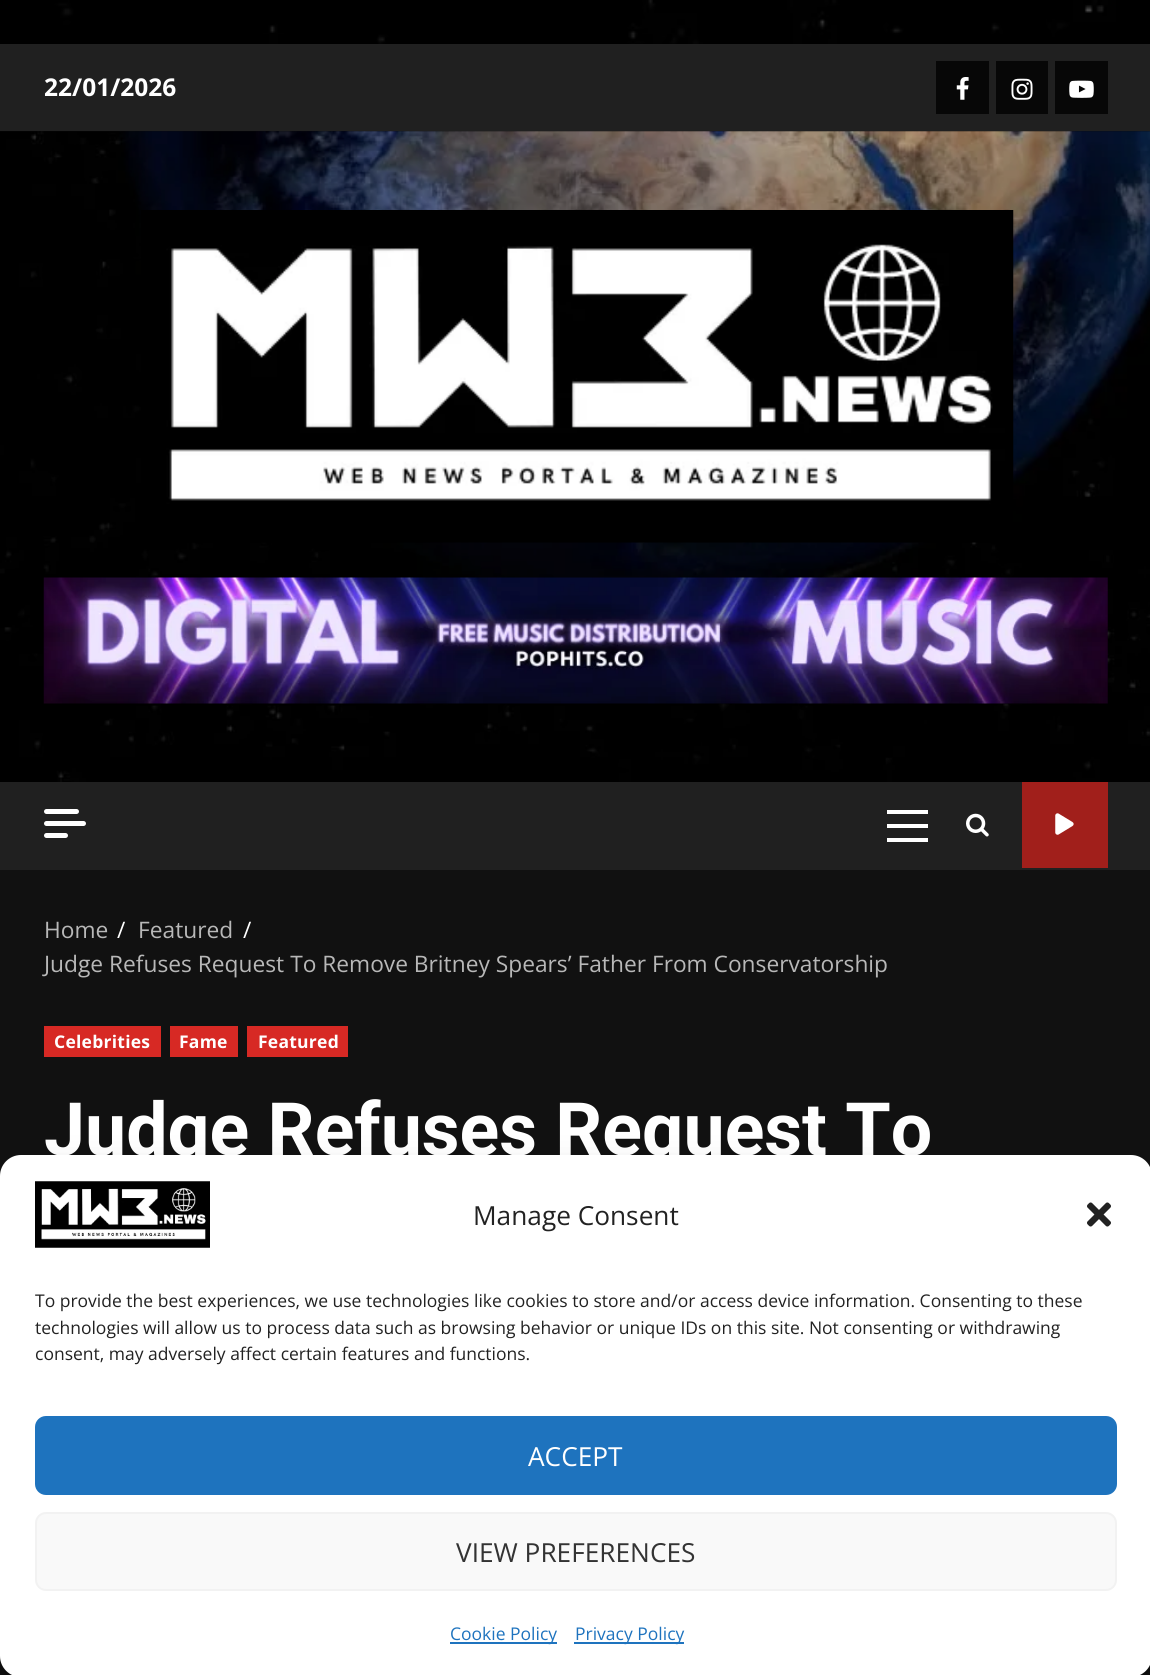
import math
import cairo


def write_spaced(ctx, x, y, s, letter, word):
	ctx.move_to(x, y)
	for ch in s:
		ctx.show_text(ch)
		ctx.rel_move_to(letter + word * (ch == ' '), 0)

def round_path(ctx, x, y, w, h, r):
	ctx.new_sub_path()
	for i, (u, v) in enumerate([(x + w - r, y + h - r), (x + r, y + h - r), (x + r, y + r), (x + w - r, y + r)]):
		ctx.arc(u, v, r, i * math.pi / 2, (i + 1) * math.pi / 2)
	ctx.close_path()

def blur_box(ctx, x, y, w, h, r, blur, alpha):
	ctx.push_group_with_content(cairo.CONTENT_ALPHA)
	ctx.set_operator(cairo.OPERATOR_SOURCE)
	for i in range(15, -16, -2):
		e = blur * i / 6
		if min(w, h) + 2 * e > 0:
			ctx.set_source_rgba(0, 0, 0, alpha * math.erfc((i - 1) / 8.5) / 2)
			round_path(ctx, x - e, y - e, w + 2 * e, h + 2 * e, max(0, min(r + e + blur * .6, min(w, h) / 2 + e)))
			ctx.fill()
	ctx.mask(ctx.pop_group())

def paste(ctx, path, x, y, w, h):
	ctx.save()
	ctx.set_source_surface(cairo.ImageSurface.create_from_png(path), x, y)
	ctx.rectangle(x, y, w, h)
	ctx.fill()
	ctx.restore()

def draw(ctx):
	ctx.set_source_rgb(1, 1, 1)
	ctx.paint()
	paste(ctx, 'media/1.png', 0, 0, 1150, 44)
	ctx.set_source_rgb(0.067, 0.067, 0.067)
	ctx.rectangle(0, 131, 1150, 1544)
	ctx.fill()
	ctx.set_source_rgb(0.125, 0.125, 0.125)
	ctx.rectangle(0, 44, 1150, 87)
	ctx.fill()
	ctx.select_font_face('Open Sans', cairo.FONT_SLANT_NORMAL, cairo.FONT_WEIGHT_BOLD)
	ctx.set_font_size(24.5)
	ctx.set_source_rgb(1, 1, 1)
	ctx.move_to(44, 96)
	ctx.show_text('22/01/2026')
	ctx.set_source_rgb(0.031, 0.031, 0.031)
	ctx.rectangle(936, 61, 53, 53)
	ctx.fill()
	paste(ctx, 'media/2.png', 956, 77, 13, 23)
	ctx.rectangle(996, 61, 52, 53)
	ctx.fill()
	paste(ctx, 'media/3.png', 1011, 78, 22, 22)
	ctx.rectangle(1055, 61, 53, 53)
	ctx.fill()
	paste(ctx, 'media/4.png', 1069, 80, 25, 18)
	paste(ctx, 'media/5.png', 0, 131, 1150, 651)
	ctx.set_source_rgba(0, 0, 0, 0.33)
	ctx.rectangle(0, 131, 1150, 647)
	ctx.fill()
	paste(ctx, 'media/6.png', 141, 210, 873, 333)
	paste(ctx, 'media/7.png', 43, 577, 1065, 127)
	ctx.set_source_rgb(0.125, 0.125, 0.125)
	ctx.rectangle(0, 782, 1150, 88)
	ctx.fill()
	ctx.set_source_rgb(1, 1, 1)
	round_path(ctx, 44, 809, 35, 5, 2.5)
	ctx.fill()
	round_path(ctx, 44, 821, 42, 5, 2.5)
	ctx.fill()
	round_path(ctx, 44, 833, 24, 5, 2.5)
	ctx.fill()
	ctx.rectangle(887, 824, 41, 4)
	ctx.rectangle(887, 810, 41, 4)
	ctx.rectangle(887, 838, 41, 4)
	ctx.fill()
	paste(ctx, 'media/8.png', 966, 813, 23, 24)
	ctx.set_source_rgb(0.631, 0.122, 0.106)
	ctx.rectangle(1022, 782, 86, 86)
	ctx.fill()
	paste(ctx, 'media/9.png', 1055, 813, 19, 22)
	ctx.select_font_face('Open Sans')
	ctx.set_font_size(22.75)
	ctx.set_source_rgb(0.722, 0.722, 0.722)
	ctx.move_to(44, 938)
	ctx.show_text('Home')
	ctx.set_source_rgb(1, 1, 1)
	ctx.move_to(117, 938)
	ctx.show_text('/')
	ctx.set_source_rgb(0.722, 0.722, 0.722)
	ctx.move_to(138, 938)
	ctx.show_text('Featured')
	ctx.set_source_rgb(1, 1, 1)
	ctx.move_to(243, 938)
	ctx.show_text('/')
	ctx.set_source_rgb(0.722, 0.722, 0.722)
	ctx.move_to(44, 972)
	ctx.show_text('Judge Refuses Request To Remove Britney Spears’ Father From Conservatorship')
	ctx.set_source_rgb(0.843, 0.161, 0.141)
	ctx.rectangle(44, 1026, 117, 31)
	ctx.fill()
	ctx.select_font_face('Open Sans', cairo.FONT_SLANT_NORMAL, cairo.FONT_WEIGHT_BOLD)
	ctx.set_font_size(17.5)
	ctx.set_source_rgb(1, 1, 1)
	write_spaced(ctx, 54, 1048, 'Celebrities', 0.25, 0)
	ctx.set_source_rgb(0.843, 0.161, 0.141)
	ctx.rectangle(170, 1026, 68, 31)
	ctx.fill()
	ctx.set_source_rgb(1, 1, 1)
	write_spaced(ctx, 179, 1048, 'Fame', 0.25, 0)
	ctx.set_source_rgb(0.843, 0.161, 0.141)
	ctx.rectangle(247, 1026, 101, 31)
	ctx.fill()
	ctx.set_source_rgb(1, 1, 1)
	write_spaced(ctx, 258, 1048, 'Featured', 0.25, 0)
	ctx.select_font_face('Roboto', cairo.FONT_SLANT_NORMAL, cairo.FONT_WEIGHT_BOLD)
	ctx.set_font_size(73.5)
	ctx.move_to(44, 1155)
	ctx.show_text('Judge Refuses Request To')
	ctx.set_source_rgb(0, 0, 0)
	blur_box(ctx, 0, 1166, 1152, 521, 21, 5, 0.23)
	blur_box(ctx, 0, 1173, 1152, 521, 21, 17.5, 0.19)
	ctx.set_source_rgb(1, 1, 1)
	round_path(ctx, 0, 1155, 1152, 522, 21)
	ctx.fill()
	paste(ctx, 'media/10.png', 35, 1181, 175, 67)
	ctx.select_font_face('Open Sans')
	ctx.set_font_size(26.25)
	ctx.set_source_rgb(0.133, 0.133, 0.133)
	ctx.move_to(473, 1225)
	ctx.show_text('Manage Consent')
	paste(ctx, 'media/11.png', 1087, 1202, 24, 25)
	ctx.set_font_size(17.5)
	for x, y, s in [
		(35, 1307, 'To provide the best experiences, we use technologies like cookies to store and/or access device information. Consenting to these'),
		(35, 1334, 'technologies will allow us to process data such as browsing behavior or unique IDs on this site. Not consenting or withdrawing'),
		(35, 1360, 'consent, may adversely affect certain features and functions.'),
	]:
		ctx.move_to(x, y)
		ctx.show_text(s)
	ctx.set_source_rgb(0.118, 0.451, 0.745)
	round_path(ctx, 36, 1417, 1080, 77, 10)
	ctx.fill_preserve()
	ctx.stroke()
	ctx.set_font_size(26.25)
	ctx.set_source_rgb(1, 1, 1)
	ctx.move_to(528, 1466)
	ctx.show_text('ACCEPT')
	ctx.set_source_rgb(0.976, 0.976, 0.976)
	round_path(ctx, 36, 1513, 1080, 77, 10)
	ctx.fill_preserve()
	ctx.set_source_rgb(0.949, 0.949, 0.949)
	ctx.stroke()
	ctx.set_source_rgb(0.2, 0.2, 0.2)
	ctx.move_to(456, 1562)
	ctx.show_text('VIEW PREFERENCES')
	ctx.set_source_rgb(0.118, 0.451, 0.745)
	ctx.rectangle(450, 1642, 107, 2)
	ctx.fill()
	ctx.set_font_size(17.5)
	ctx.move_to(450, 1640)
	ctx.show_text('Cookie Policy')
	ctx.rectangle(574, 1642, 110, 2)
	ctx.fill()
	ctx.move_to(575, 1640)
	ctx.show_text('Privacy Policy')


surface = cairo.ImageSurface(cairo.FORMAT_RGB24, 1150, 1675)
ctx = cairo.Context(surface)
options = cairo.FontOptions()
options.set_hint_metrics(cairo.HINT_METRICS_OFF)
options.set_hint_style(cairo.HINT_STYLE_NONE)
ctx.set_font_options(options)
ctx.set_miter_limit(4)
draw(ctx)
surface.write_to_png('image.png')
